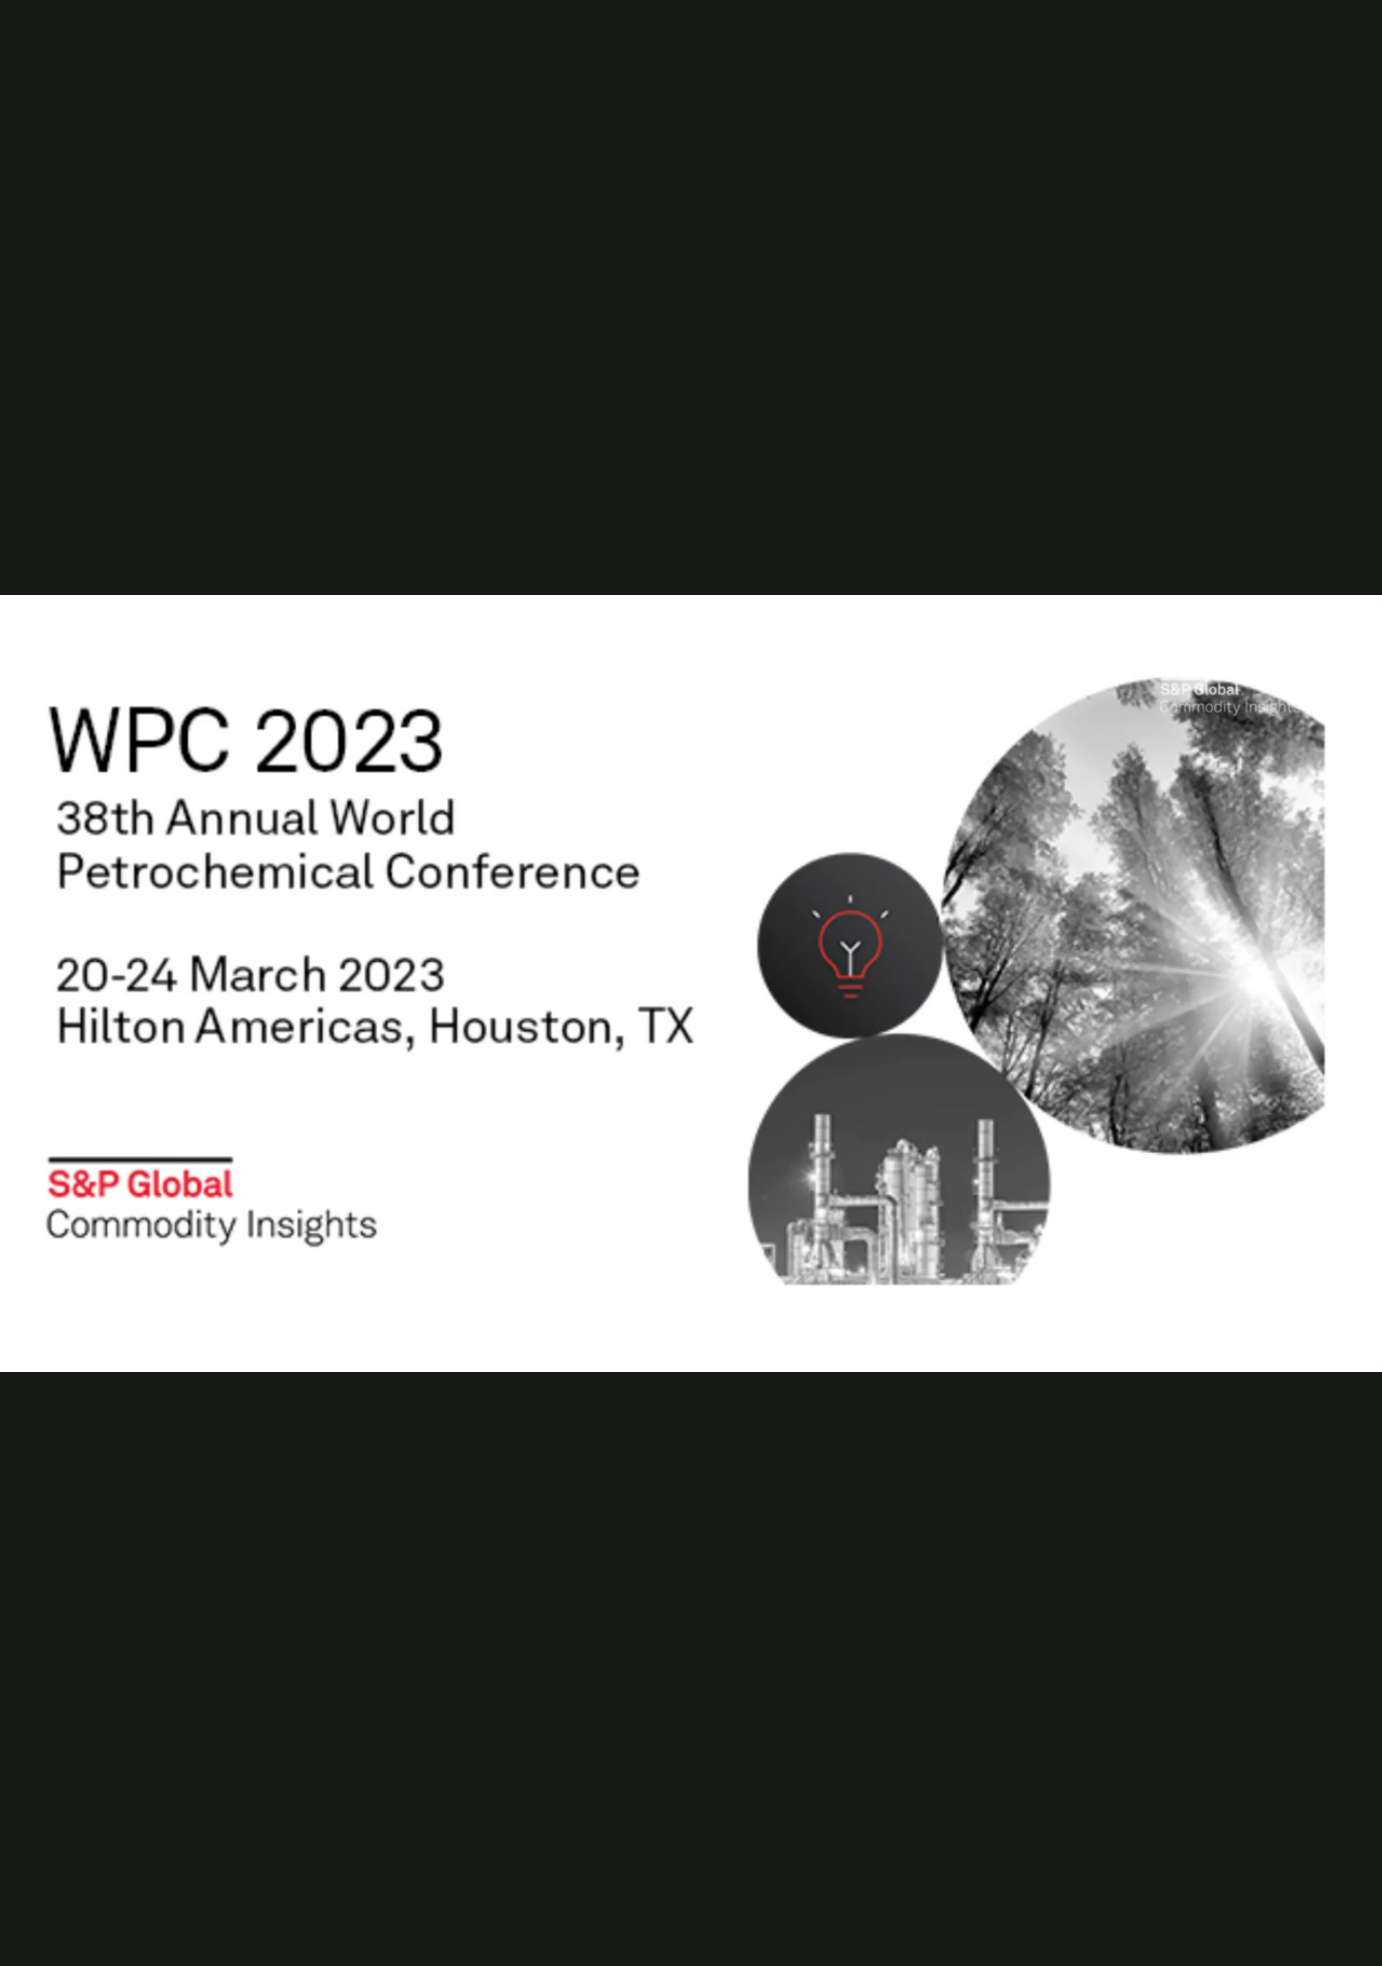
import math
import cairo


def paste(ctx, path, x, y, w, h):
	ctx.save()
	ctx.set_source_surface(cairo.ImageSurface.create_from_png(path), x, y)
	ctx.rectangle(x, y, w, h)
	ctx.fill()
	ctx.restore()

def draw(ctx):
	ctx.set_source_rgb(0.082, 0.106, 0.09)
	ctx.paint()
	paste(ctx, 'media/1.png', 0, 595, 1382, 777)


surface = cairo.ImageSurface(cairo.FORMAT_RGB24, 1382, 1966)
ctx = cairo.Context(surface)
options = cairo.FontOptions()
options.set_hint_metrics(cairo.HINT_METRICS_OFF)
options.set_hint_style(cairo.HINT_STYLE_NONE)
ctx.set_font_options(options)
ctx.set_miter_limit(4)
draw(ctx)
surface.write_to_png('image.png')
